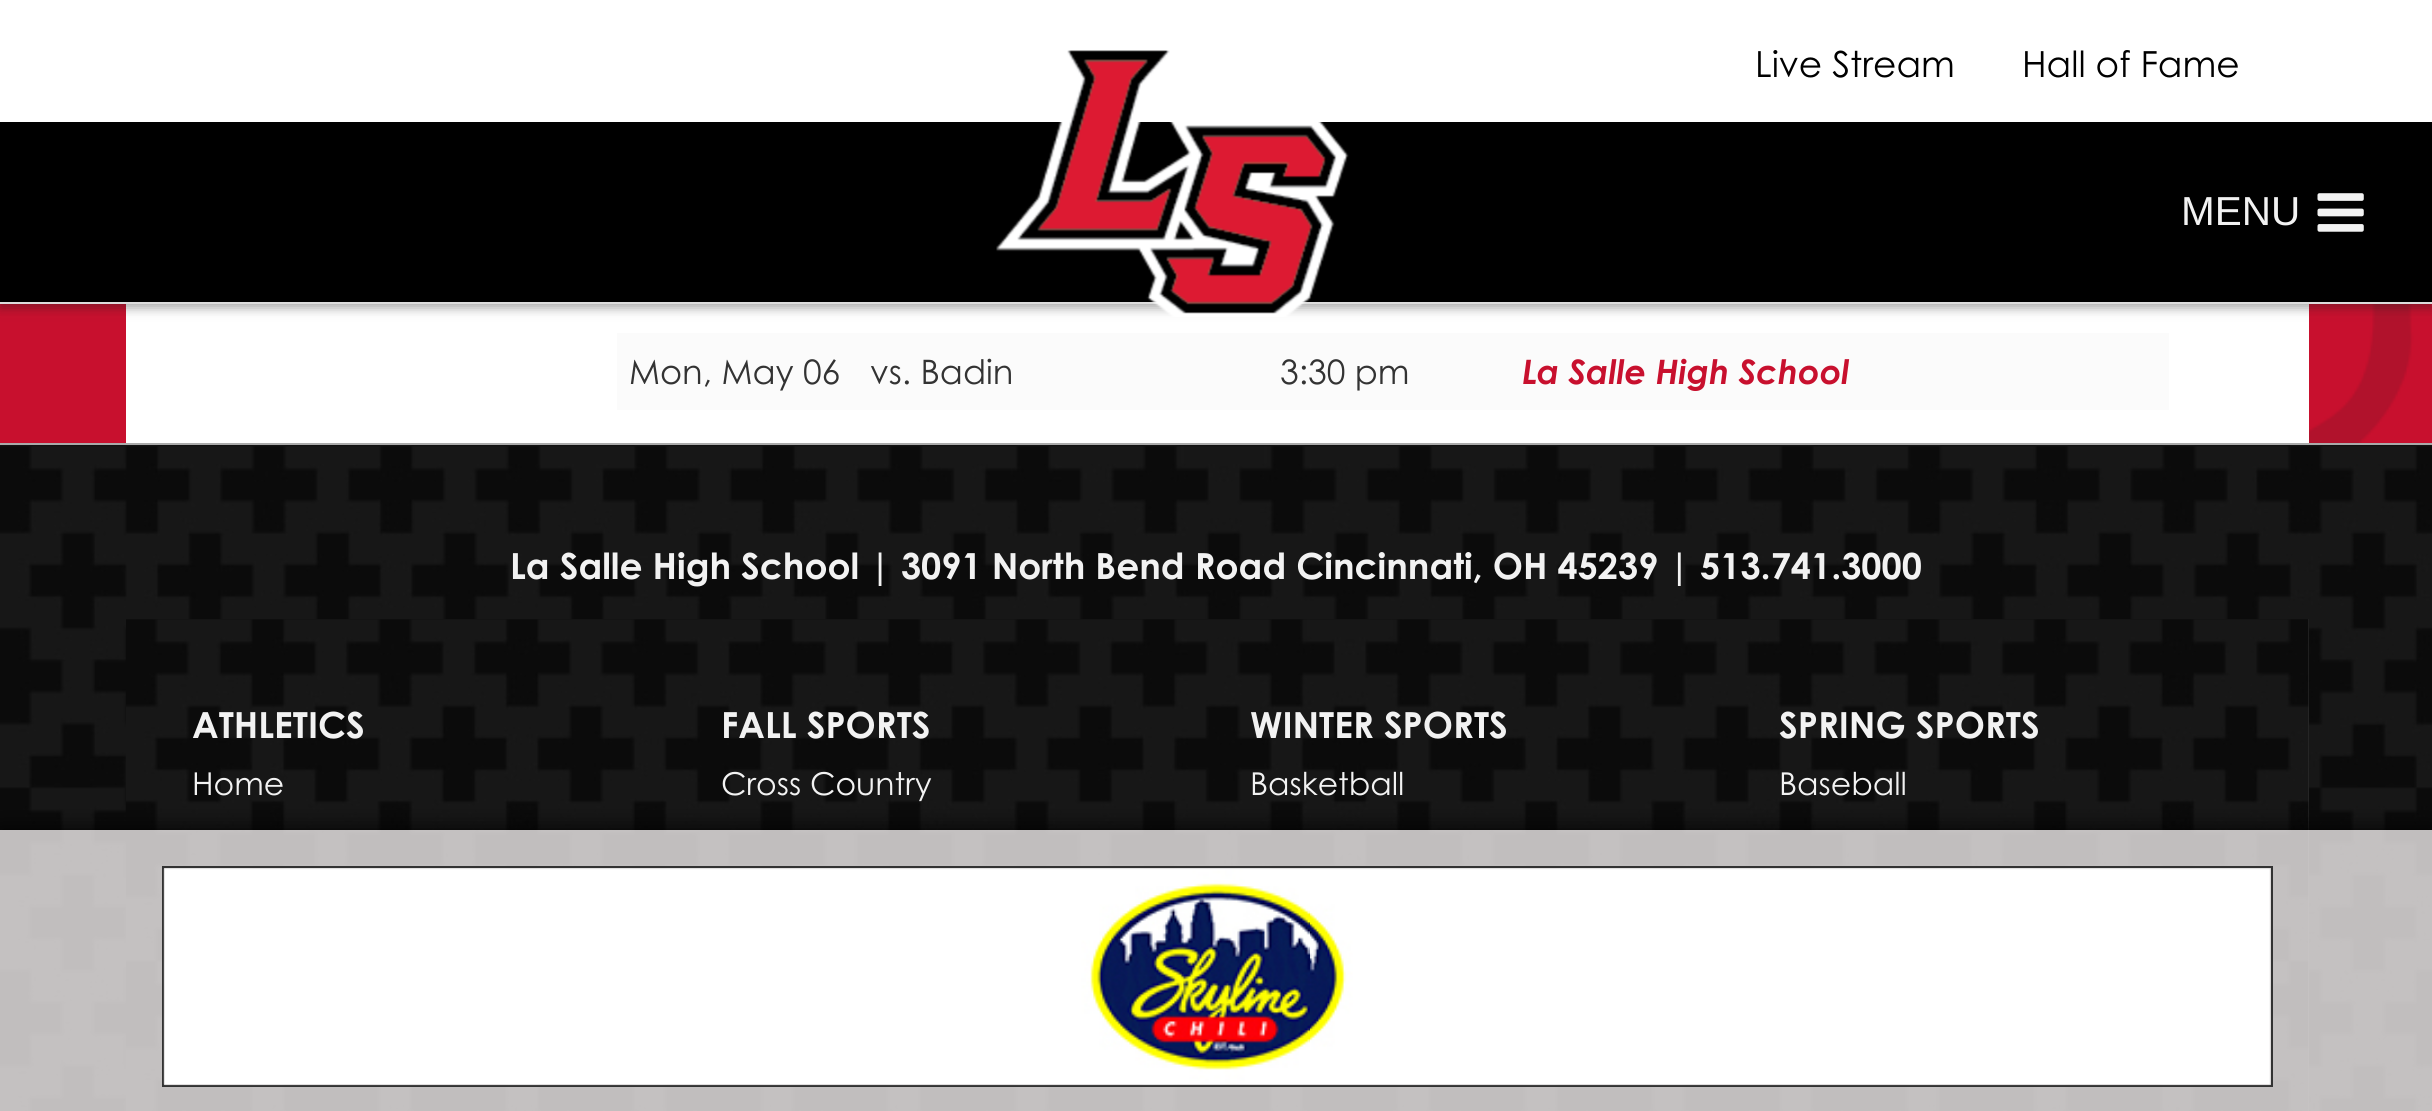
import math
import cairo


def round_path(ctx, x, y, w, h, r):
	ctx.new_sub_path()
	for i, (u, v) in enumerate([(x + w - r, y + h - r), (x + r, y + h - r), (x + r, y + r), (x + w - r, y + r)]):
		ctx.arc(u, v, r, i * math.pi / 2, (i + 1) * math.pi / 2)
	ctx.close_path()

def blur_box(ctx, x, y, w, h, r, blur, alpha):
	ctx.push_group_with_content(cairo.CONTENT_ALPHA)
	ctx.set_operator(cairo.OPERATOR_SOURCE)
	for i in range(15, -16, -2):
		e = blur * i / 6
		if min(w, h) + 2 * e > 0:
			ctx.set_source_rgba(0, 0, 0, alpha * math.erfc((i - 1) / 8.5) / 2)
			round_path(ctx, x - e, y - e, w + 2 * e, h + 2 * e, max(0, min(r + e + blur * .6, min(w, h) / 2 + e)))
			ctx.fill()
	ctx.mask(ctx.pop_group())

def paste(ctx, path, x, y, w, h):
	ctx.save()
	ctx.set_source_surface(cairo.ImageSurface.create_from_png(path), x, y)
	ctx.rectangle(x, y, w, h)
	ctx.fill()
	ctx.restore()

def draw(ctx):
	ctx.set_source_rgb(1, 1, 1)
	ctx.paint()
	paste(ctx, 'media/3.png', 0, 304, 2432, 139)
	ctx.set_source_rgb(1, 1, 1)
	ctx.rectangle(126, 304, 2183, 139)
	ctx.fill()
	ctx.set_source_rgb(0.129, 0.129, 0.129)
	blur_box(ctx, 0, 5, 2432, 303, 0, 5.5, 0.4)
	ctx.set_source_rgb(1, 1, 1)
	ctx.rectangle(0, 0, 2432, 122)
	ctx.fill()
	ctx.select_font_face('Century Gothic')
	ctx.set_font_size(36)
	ctx.set_source_rgb(0, 0, 0)
	ctx.move_to(1755, 77)
	ctx.show_text('Live Stream')
	ctx.move_to(2022, 77)
	ctx.show_text('Hall of Fame')
	ctx.rectangle(0, 122, 2432, 180)
	ctx.fill()
	ctx.set_source_rgb(0.867, 0.867, 0.867)
	ctx.rectangle(0, 302, 2432, 2)
	ctx.fill()
	paste(ctx, 'media/1.png', 996, 50, 353, 267)
	ctx.select_font_face('Liberation Sans')
	ctx.set_font_size(40.5)
	ctx.set_source_rgb(0.949, 0.949, 0.949)
	ctx.move_to(2181, 225)
	ctx.show_text('MENU')
	paste(ctx, 'media/2.png', 2317, 193, 47, 39)
	ctx.set_source_rgb(0.984, 0.984, 0.984)
	ctx.rectangle(617, 333, 1552, 77)
	ctx.fill()
	ctx.select_font_face('Century Gothic')
	ctx.set_font_size(33.75)
	ctx.set_source_rgb(0.2, 0.2, 0.2)
	for x, y, s in [
		(629, 384, 'Mon, May 06'),
		(870, 384, 'vs. Badin'),
		(1280, 384, '3:30 pm'),
	]:
		ctx.move_to(x, y)
		ctx.show_text(s)
	ctx.select_font_face('Century Gothic', cairo.FONT_SLANT_ITALIC, cairo.FONT_WEIGHT_BOLD)
	ctx.set_source_rgb(0.784, 0.063, 0.18)
	ctx.move_to(1522, 384)
	ctx.show_text('La Salle High School')
	paste(ctx, 'media/4.png', 0, 445, 2432, 666)
	ctx.set_source_rgb(0.667, 0.667, 0.667)
	ctx.rectangle(0, 443, 2432, 2)
	ctx.fill()
	ctx.select_font_face('Century Gothic', cairo.FONT_SLANT_NORMAL, cairo.FONT_WEIGHT_BOLD)
	ctx.set_font_size(36)
	ctx.set_source_rgb(0.949, 0.949, 0.949)
	ctx.move_to(510, 579)
	ctx.show_text('La Salle High School | 3091 North Bend Road Cincinnati, OH 45239 | 513.741.3000')
	ctx.set_source_rgb(0.2, 0.2, 0.2)
	ctx.rectangle(2308, 619, 1, 492)
	ctx.fill()
	paste(ctx, 'media/5.png', 126, 619, 2183, 492)
	ctx.set_source_rgb(0.949, 0.949, 0.949)
	ctx.move_to(192, 738)
	ctx.show_text('ATHLETICS')
	ctx.select_font_face('Century Gothic')
	ctx.set_font_size(31.5)
	ctx.move_to(192, 795)
	ctx.show_text('Home')
	ctx.select_font_face('Century Gothic', cairo.FONT_SLANT_NORMAL, cairo.FONT_WEIGHT_BOLD)
	ctx.set_font_size(36)
	ctx.move_to(721, 738)
	ctx.show_text('FALL SPORTS')
	ctx.select_font_face('Century Gothic')
	ctx.set_font_size(31.5)
	ctx.move_to(721, 795)
	ctx.show_text('Cross Country')
	ctx.select_font_face('Century Gothic', cairo.FONT_SLANT_NORMAL, cairo.FONT_WEIGHT_BOLD)
	ctx.set_font_size(36)
	ctx.move_to(1250, 738)
	ctx.show_text('WINTER SPORTS')
	ctx.select_font_face('Century Gothic')
	ctx.set_font_size(31.5)
	ctx.move_to(1250, 795)
	ctx.show_text('Basketball')
	ctx.select_font_face('Century Gothic', cairo.FONT_SLANT_NORMAL, cairo.FONT_WEIGHT_BOLD)
	ctx.set_font_size(36)
	ctx.move_to(1779, 738)
	ctx.show_text('SPRING SPORTS')
	ctx.select_font_face('Century Gothic')
	ctx.set_font_size(31.5)
	ctx.move_to(1779, 795)
	ctx.show_text('Baseball')
	ctx.save()
	ctx.set_fill_rule(cairo.FILL_RULE_EVEN_ODD)
	ctx.new_path()
	ctx.move_to(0, 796)
	ctx.line_to(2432, 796)
	ctx.line_to(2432, 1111)
	ctx.line_to(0, 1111)
	ctx.close_path()
	ctx.move_to(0, 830)
	ctx.line_to(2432, 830)
	ctx.line_to(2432, 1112)
	ctx.line_to(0, 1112)
	ctx.close_path()
	ctx.clip()
	ctx.set_source_rgb(0, 0, 0)
	blur_box(ctx, 0, 830, 2432, 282, 0, 11, 1)
	ctx.restore()
	ctx.set_source_rgba(0.937, 0.922, 0.922, 0.8)
	ctx.rectangle(0, 830, 2432, 281)
	ctx.fill()
	ctx.rectangle(163, 867, 2109, 219)
	ctx.set_source_rgb(0.2, 0.2, 0.2)
	ctx.stroke()
	paste(ctx, 'media/6.png', 163, 868, 2108, 218)


surface = cairo.ImageSurface(cairo.FORMAT_RGB24, 2432, 1111)
ctx = cairo.Context(surface)
options = cairo.FontOptions()
options.set_hint_metrics(cairo.HINT_METRICS_OFF)
options.set_hint_style(cairo.HINT_STYLE_NONE)
ctx.set_font_options(options)
ctx.set_miter_limit(4)
draw(ctx)
surface.write_to_png('image.png')
